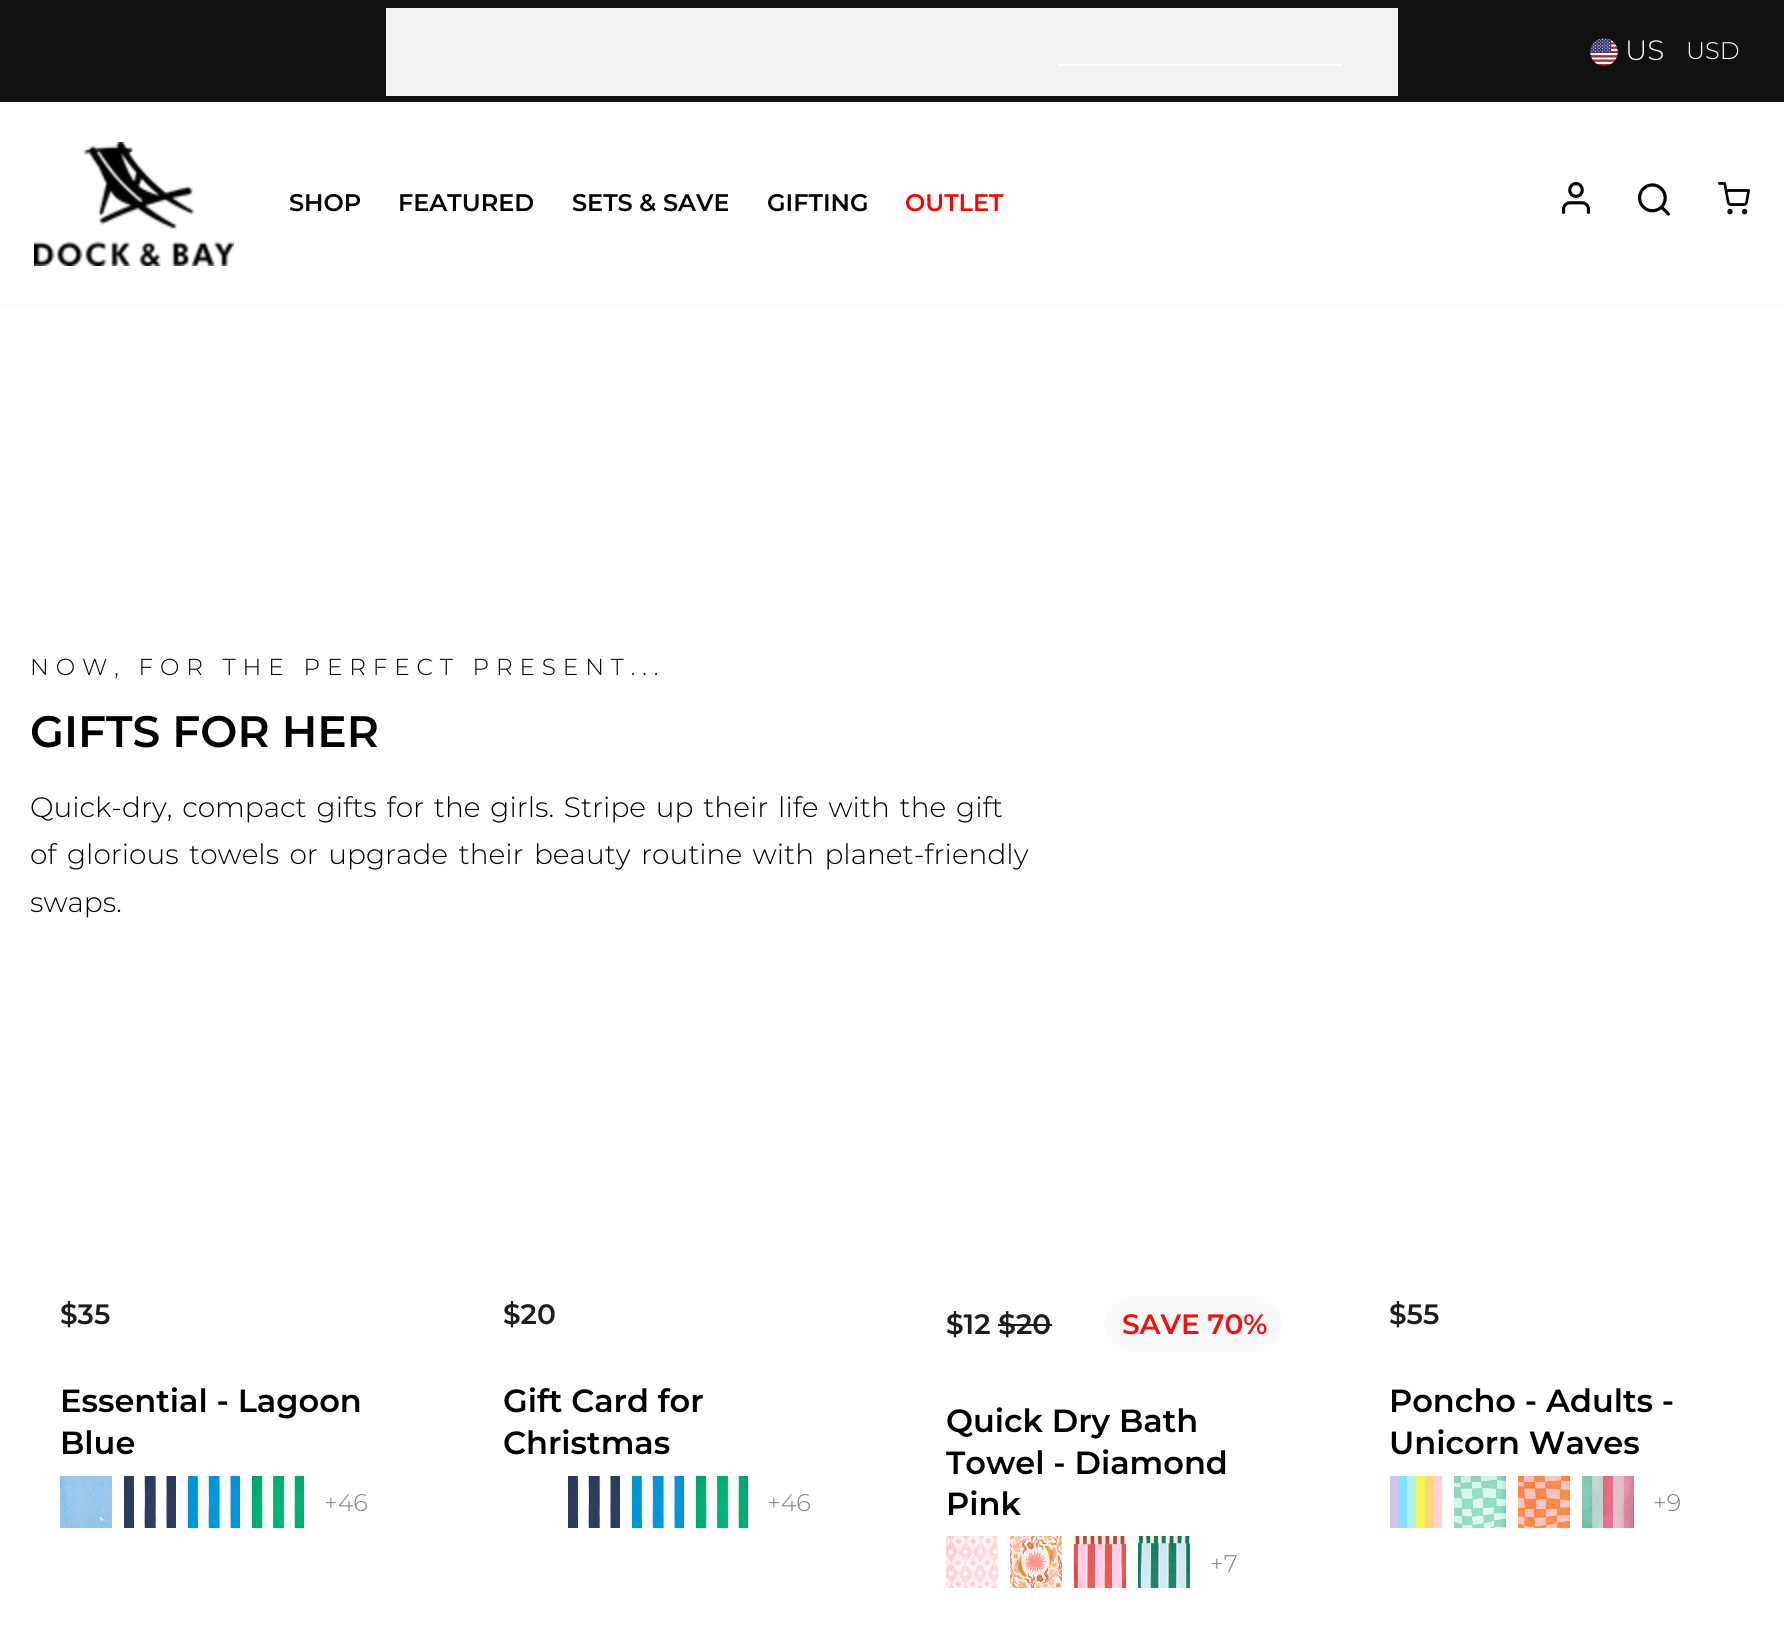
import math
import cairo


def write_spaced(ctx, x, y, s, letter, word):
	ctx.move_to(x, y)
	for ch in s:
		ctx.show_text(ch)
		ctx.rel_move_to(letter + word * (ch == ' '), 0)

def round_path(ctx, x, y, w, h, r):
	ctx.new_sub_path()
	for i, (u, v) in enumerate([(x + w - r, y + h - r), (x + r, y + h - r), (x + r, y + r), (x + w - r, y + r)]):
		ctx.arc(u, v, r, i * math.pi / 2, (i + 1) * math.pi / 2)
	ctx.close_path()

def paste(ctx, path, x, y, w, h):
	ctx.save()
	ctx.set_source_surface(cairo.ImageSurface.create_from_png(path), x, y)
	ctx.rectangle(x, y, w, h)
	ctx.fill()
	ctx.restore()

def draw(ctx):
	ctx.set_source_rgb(1, 1, 1)
	ctx.paint()
	ctx.set_source_rgb(0.067, 0.067, 0.067)
	ctx.rectangle(0, 0, 1784, 102)
	ctx.fill()
	ctx.set_source_rgb(0.953, 0.949, 0.949)
	ctx.rectangle(386, 8, 1012, 88)
	ctx.fill()
	ctx.set_source_rgb(1, 1, 1)
	ctx.rectangle(1058, 64, 284, 2)
	ctx.fill()
	paste(ctx, 'media/1.png', 1590, 38, 28, 28)
	ctx.select_font_face('Montserrat Light')
	ctx.set_font_size(28)
	ctx.move_to(1625, 60)
	ctx.show_text('US')
	ctx.set_font_size(24)
	ctx.move_to(1686, 59)
	ctx.show_text('USD')
	ctx.set_source_rgb(0.98, 0.98, 0.98)
	ctx.rectangle(0, 304, 1784, 2)
	ctx.fill()
	paste(ctx, 'media/2.png', 34, 142, 200, 124)
	ctx.select_font_face('Montserrat SemiBold')
	ctx.set_source_rgb(0, 0, 0)
	for x, y, s in [
		(289, 211, 'SHOP'),
		(398, 211, 'FEATURED'),
		(572, 211, 'SETS & SAVE'),
		(767, 211, 'GIFTING'),
	]:
		ctx.move_to(x, y)
		ctx.show_text(s)
	ctx.set_source_rgb(1, 0, 0)
	ctx.move_to(905, 211)
	ctx.show_text('OUTLET')
	paste(ctx, 'media/3.png', 1562, 182, 28, 32)
	paste(ctx, 'media/4.png', 1638, 183, 32, 33)
	paste(ctx, 'media/5.png', 1718, 182, 32, 33)
	ctx.select_font_face('Montserrat Light')
	ctx.set_font_size(23.1)
	ctx.set_source_rgb(0, 0, 0)
	write_spaced(ctx, 30, 675, 'NOW, FOR THE PERFECT PRESENT...', 6.9, 0)
	ctx.select_font_face('Montserrat SemiBold')
	ctx.set_font_size(44)
	ctx.move_to(30, 747)
	ctx.show_text('GIFTS FOR HER')
	ctx.select_font_face('Montserrat Light')
	ctx.set_font_size(28)
	write_spaced(ctx, 30, 817, 'Quick-dry, compact gifts for the girls. Stripe up their life with the gift', 0, 2.6)
	write_spaced(ctx, 30, 864, 'of glorious towels or upgrade their beauty routine with planet-friendly', 0, 3.25)
	ctx.move_to(30, 912)
	ctx.show_text('swaps.')
	ctx.select_font_face('Montserrat SemiBold')
	ctx.set_source_rgb(0.11, 0.114, 0.114)
	ctx.move_to(60, 1324)
	ctx.show_text('$35')
	ctx.set_font_size(32)
	ctx.set_source_rgb(0, 0, 0)
	ctx.move_to(60, 1412)
	ctx.show_text('Essential - Lagoon')
	ctx.move_to(60, 1454)
	ctx.show_text('Blue')
	paste(ctx, 'media/6.png', 60, 1476, 52, 52)
	paste(ctx, 'media/7.png', 124, 1476, 52, 52)
	paste(ctx, 'media/8.png', 188, 1476, 52, 52)
	paste(ctx, 'media/9.png', 252, 1476, 52, 52)
	ctx.select_font_face('Montserrat Light')
	ctx.set_font_size(24)
	ctx.set_source_rgb(0.502, 0.502, 0.502)
	ctx.move_to(324, 1511)
	ctx.show_text('+46')
	ctx.select_font_face('Montserrat SemiBold')
	ctx.set_font_size(28)
	ctx.set_source_rgb(0.11, 0.114, 0.114)
	ctx.move_to(503, 1324)
	ctx.show_text('$20')
	ctx.set_font_size(32)
	ctx.set_source_rgb(0, 0, 0)
	ctx.move_to(503, 1412)
	ctx.show_text('Gift Card for')
	ctx.move_to(503, 1454)
	ctx.show_text('Christmas')
	paste(ctx, 'media/10.png', 568, 1476, 52, 52)
	paste(ctx, 'media/8.png', 632, 1476, 52, 52)
	paste(ctx, 'media/11.png', 696, 1476, 52, 52)
	ctx.select_font_face('Montserrat Light')
	ctx.set_font_size(24)
	ctx.set_source_rgb(0.502, 0.502, 0.502)
	ctx.move_to(767, 1511)
	ctx.show_text('+46')
	ctx.select_font_face('Montserrat SemiBold')
	ctx.set_font_size(28)
	ctx.set_source_rgb(0.11, 0.114, 0.114)
	ctx.move_to(946, 1334)
	ctx.show_text('$12 $20')
	ctx.rectangle(998, 1324, 54, 2)
	ctx.fill()
	ctx.set_source_rgb(0.98, 0.98, 0.98)
	round_path(ctx, 1104, 1296, 178, 56, 28)
	ctx.fill()
	ctx.set_source_rgb(0.965, 0.051, 0.051)
	ctx.move_to(1122, 1334)
	ctx.show_text('SAVE 70%')
	ctx.set_font_size(32)
	ctx.set_source_rgb(0, 0, 0)
	for x, y, s in [
		(946, 1432, 'Quick Dry Bath'),
		(946, 1474, 'Towel - Diamond'),
		(946, 1515, 'Pink'),
	]:
		ctx.move_to(x, y)
		ctx.show_text(s)
	paste(ctx, 'media/12.png', 946, 1536, 52, 52)
	paste(ctx, 'media/13.png', 1010, 1536, 52, 52)
	paste(ctx, 'media/14.png', 1074, 1536, 52, 52)
	paste(ctx, 'media/15.png', 1138, 1536, 52, 52)
	ctx.select_font_face('Montserrat Light')
	ctx.set_font_size(24)
	ctx.set_source_rgb(0.502, 0.502, 0.502)
	ctx.move_to(1210, 1572)
	ctx.show_text('+7')
	ctx.select_font_face('Montserrat SemiBold')
	ctx.set_font_size(28)
	ctx.set_source_rgb(0.11, 0.114, 0.114)
	ctx.move_to(1389, 1324)
	ctx.show_text('$55')
	ctx.set_font_size(32)
	ctx.set_source_rgb(0, 0, 0)
	ctx.move_to(1389, 1412)
	ctx.show_text('Poncho - Adults -')
	ctx.move_to(1389, 1454)
	ctx.show_text('Unicorn Waves')
	paste(ctx, 'media/16.png', 1390, 1476, 52, 52)
	paste(ctx, 'media/17.png', 1454, 1476, 52, 52)
	paste(ctx, 'media/18.png', 1518, 1476, 52, 52)
	paste(ctx, 'media/19.png', 1582, 1476, 52, 52)
	ctx.select_font_face('Montserrat Light')
	ctx.set_font_size(24)
	ctx.set_source_rgb(0.502, 0.502, 0.502)
	ctx.move_to(1653, 1511)
	ctx.show_text('+9')


surface = cairo.ImageSurface(cairo.FORMAT_RGB24, 1784, 1637)
ctx = cairo.Context(surface)
options = cairo.FontOptions()
options.set_hint_metrics(cairo.HINT_METRICS_OFF)
options.set_hint_style(cairo.HINT_STYLE_NONE)
ctx.set_font_options(options)
ctx.set_miter_limit(4)
draw(ctx)
surface.write_to_png('image.png')
